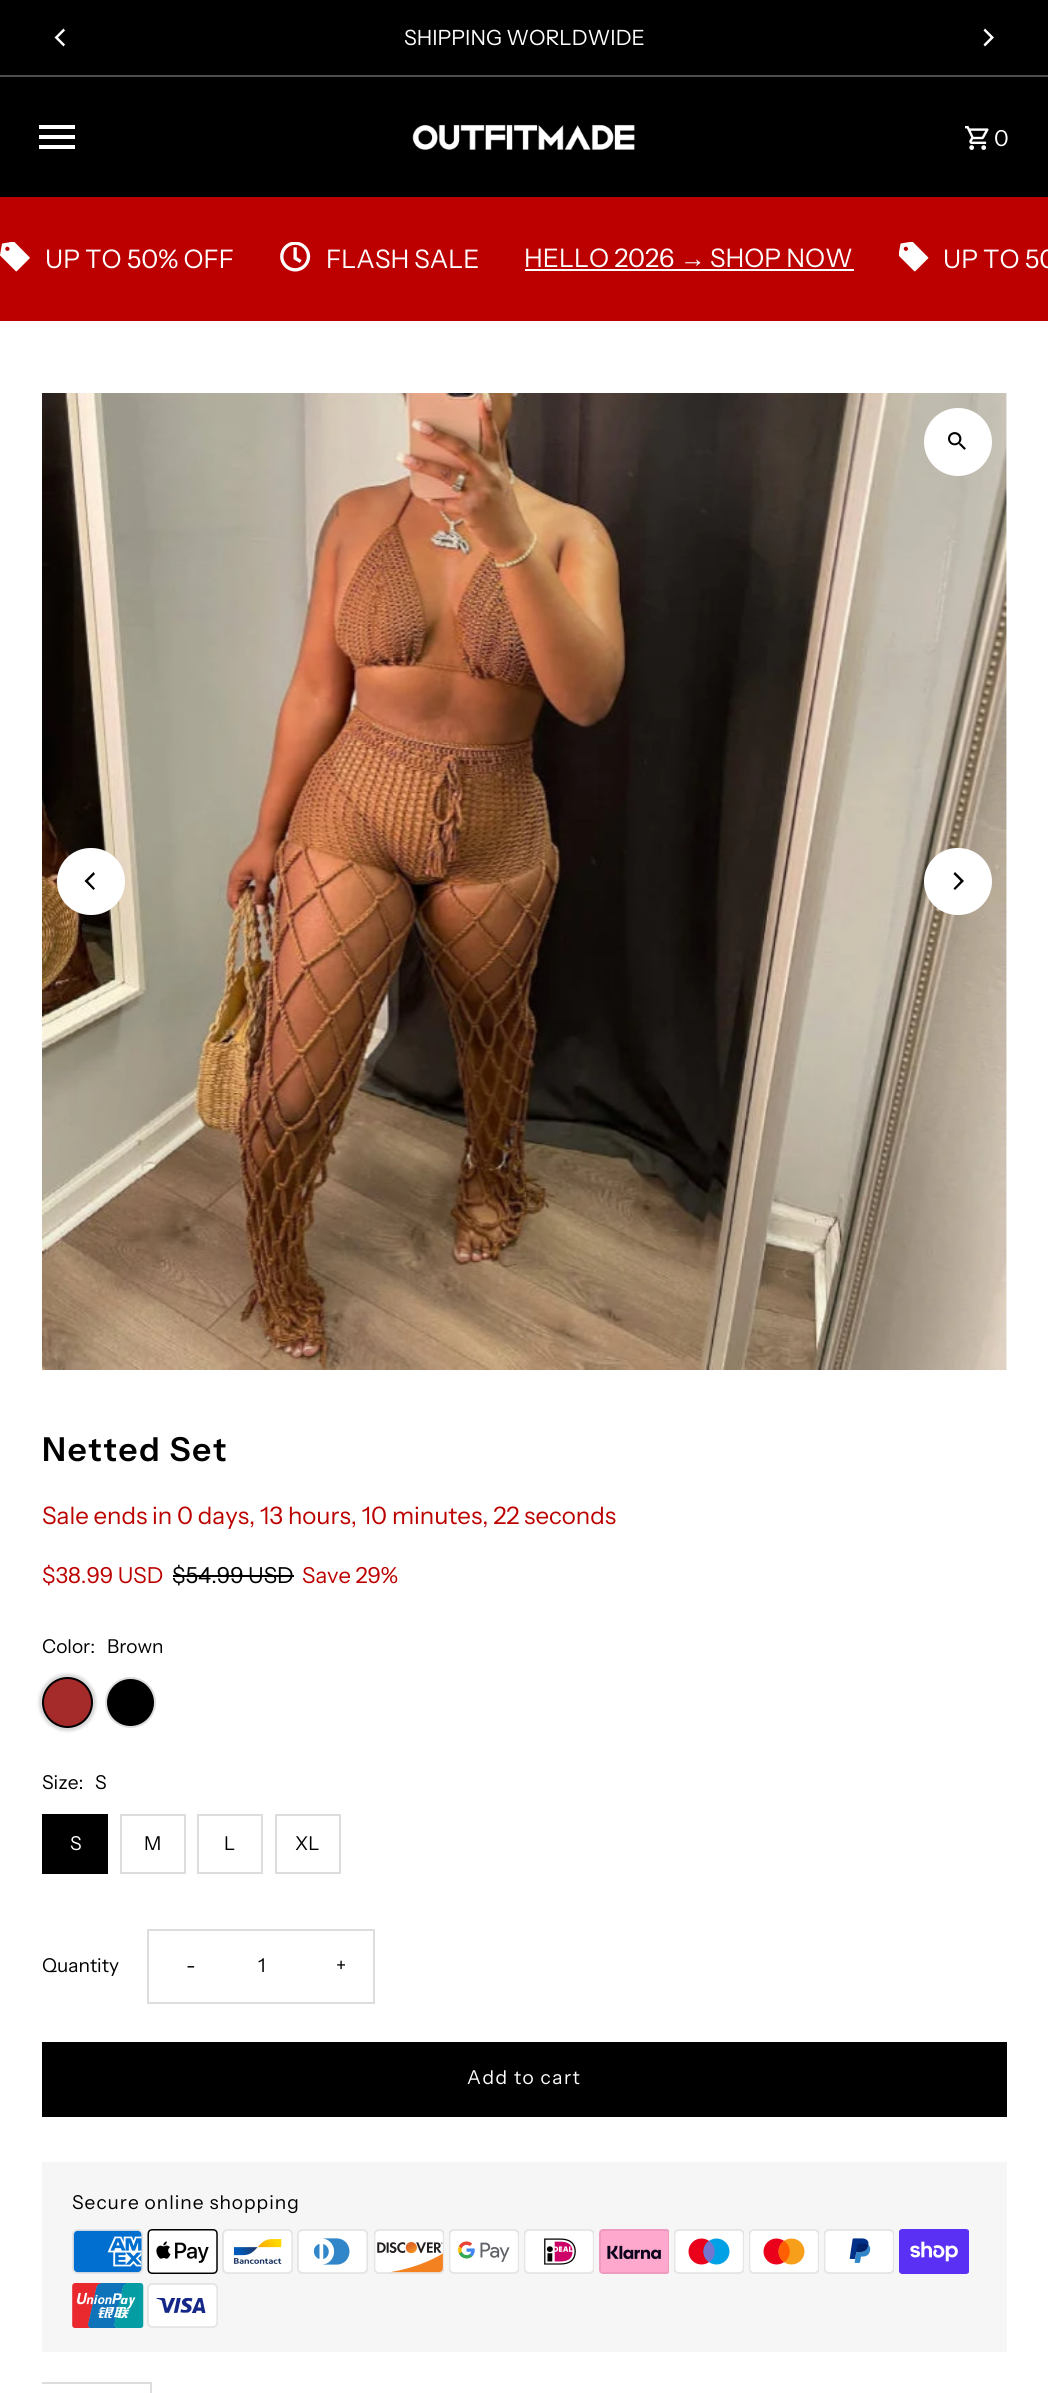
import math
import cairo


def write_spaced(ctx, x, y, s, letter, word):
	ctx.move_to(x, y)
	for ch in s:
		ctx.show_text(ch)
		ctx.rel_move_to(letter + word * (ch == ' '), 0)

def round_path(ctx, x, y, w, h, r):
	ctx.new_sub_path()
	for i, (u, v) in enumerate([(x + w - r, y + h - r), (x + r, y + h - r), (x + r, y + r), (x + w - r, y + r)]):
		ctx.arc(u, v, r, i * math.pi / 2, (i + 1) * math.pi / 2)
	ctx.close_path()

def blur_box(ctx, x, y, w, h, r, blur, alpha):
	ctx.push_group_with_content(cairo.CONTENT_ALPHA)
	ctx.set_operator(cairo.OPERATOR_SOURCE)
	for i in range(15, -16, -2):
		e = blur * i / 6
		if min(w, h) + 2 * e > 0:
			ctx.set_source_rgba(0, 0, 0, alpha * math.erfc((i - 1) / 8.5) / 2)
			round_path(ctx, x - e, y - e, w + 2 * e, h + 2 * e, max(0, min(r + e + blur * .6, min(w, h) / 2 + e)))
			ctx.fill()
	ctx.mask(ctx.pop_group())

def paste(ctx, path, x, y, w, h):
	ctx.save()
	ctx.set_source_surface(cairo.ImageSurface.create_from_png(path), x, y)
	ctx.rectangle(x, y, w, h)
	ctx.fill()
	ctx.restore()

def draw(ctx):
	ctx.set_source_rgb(1, 1, 1)
	ctx.paint()
	ctx.set_source_rgb(0.302, 0.302, 0.302)
	ctx.rectangle(0, 75, 1048, 2)
	ctx.fill()
	ctx.set_source_rgb(0, 0, 0)
	ctx.rectangle(0, 0, 1048, 75)
	ctx.fill()
	ctx.set_source_rgb(1, 1, 1)
	ctx.new_path()
	ctx.move_to(54.5, 37.5)
	ctx.line_to(63.5, 46.5)
	ctx.line_to(65, 44.5)
	ctx.line_to(58, 37.5)
	ctx.line_to(65, 30.5)
	ctx.line_to(63.5, 28.5)
	ctx.close_path()
	ctx.fill()
	ctx.select_font_face('Instrument Sans')
	ctx.set_font_size(21)
	ctx.move_to(404, 45)
	ctx.show_text('SHIPPING WORLDWIDE')
	ctx.new_path()
	ctx.move_to(994, 37.5)
	ctx.line_to(985, 28.5)
	ctx.line_to(983.5, 30.5)
	ctx.line_to(990.5, 37.5)
	ctx.line_to(983.5, 44.5)
	ctx.line_to(985, 46.5)
	ctx.close_path()
	ctx.fill()
	ctx.set_source_rgb(0, 0, 0)
	ctx.rectangle(0, 77, 1048, 120)
	ctx.fill()
	ctx.set_source_rgb(1, 1, 1)
	ctx.rectangle(39, 145, 36, 4)
	ctx.rectangle(39, 135, 36, 4)
	ctx.rectangle(39, 125, 36, 4)
	ctx.fill()
	paste(ctx, 'media/1.png', 412, 124, 223, 26)
	paste(ctx, 'media/2.png', 965, 126, 24, 24)
	ctx.set_font_size(22)
	write_spaced(ctx, 994, 146, '0', 1.5, 0)
	ctx.set_source_rgb(0.737, 0, 0)
	ctx.rectangle(0, 197, 1048, 124)
	ctx.fill()
	paste(ctx, 'media/3.png', 0, 242, 30, 30)
	ctx.set_font_size(25.5)
	ctx.set_source_rgb(1, 1, 1)
	ctx.move_to(45, 268)
	ctx.show_text('UP TO 50% OFF')
	paste(ctx, 'media/4.png', 280, 242, 31, 30)
	ctx.move_to(326, 268)
	ctx.show_text('FLASH SALE')
	ctx.move_to(524, 267)
	ctx.show_text('HELLO 2026')
	ctx.select_font_face('Liberation Sans')
	ctx.move_to(680, 267)
	ctx.show_text('→')
	ctx.rectangle(525, 269, 329, 2)
	ctx.fill()
	ctx.select_font_face('Instrument Sans')
	ctx.move_to(710, 267)
	ctx.show_text('SHOP NOW')
	paste(ctx, 'media/5.png', 899, 242, 30, 30)
	ctx.move_to(943, 268)
	ctx.show_text('UP TO 50')
	paste(ctx, 'media/6.png', 42, 393, 965, 977)
	ctx.arc(958, 442, 34, 0, 2 * math.pi)
	ctx.fill()
	paste(ctx, 'media/7.png', 948, 432, 18, 18)
	round_path(ctx, 57, 848, 68, 67, 33.5)
	ctx.fill()
	ctx.set_source_rgb(0, 0, 0)
	ctx.new_path()
	ctx.move_to(84.5, 881)
	ctx.line_to(93.5, 890)
	ctx.line_to(95, 888.5)
	ctx.line_to(88, 881)
	ctx.line_to(95, 874)
	ctx.line_to(93.5, 872)
	ctx.close_path()
	ctx.fill()
	ctx.set_source_rgb(1, 1, 1)
	round_path(ctx, 924, 848, 68, 67, 33.5)
	ctx.fill()
	ctx.set_source_rgb(0, 0, 0)
	ctx.new_path()
	ctx.move_to(964, 881)
	ctx.line_to(955, 872)
	ctx.line_to(953.5, 874)
	ctx.line_to(960.5, 881)
	ctx.line_to(953.5, 888.5)
	ctx.line_to(955, 890)
	ctx.close_path()
	ctx.fill()
	ctx.select_font_face('Instrument Sans SemiBold')
	ctx.set_font_size(33)
	write_spaced(ctx, 42, 1461, 'Netted Set', 1.75, 0)
	ctx.select_font_face('Instrument Sans')
	ctx.set_font_size(24)
	ctx.set_source_rgb(0.737, 0, 0)
	ctx.move_to(42, 1524)
	ctx.show_text('Sale ends in 0 days, 13 hours, 10 minutes, 22 seconds')
	ctx.set_font_size(22)
	ctx.move_to(42, 1583)
	ctx.show_text('$38.99 USD')
	ctx.set_source_rgb(0, 0, 0)
	ctx.move_to(172, 1583)
	ctx.show_text('$54.99 USD')
	ctx.rectangle(173, 1575, 121, 2)
	ctx.fill()
	ctx.set_source_rgb(0.737, 0, 0)
	ctx.move_to(302, 1583)
	ctx.show_text('Save 29%')
	ctx.set_font_size(19.1)
	ctx.set_source_rgb(0, 0, 0)
	ctx.move_to(42, 1653)
	ctx.show_text('Color:')
	ctx.move_to(107, 1653)
	ctx.show_text('Brown')
	ctx.set_source_rgb(0.839, 0.839, 0.839)
	blur_box(ctx, 39, 1674, 57, 57, 28.5, 1.5, 1)
	ctx.set_source_rgb(0.647, 0.165, 0.165)
	ctx.arc(67.5, 1702.5, 24.5, 0, 2 * math.pi)
	ctx.fill_preserve()
	ctx.set_source_rgb(0, 0, 0)
	ctx.stroke()
	ctx.arc(130.5, 1702.5, 24.5, 0, 2 * math.pi)
	ctx.fill_preserve()
	ctx.set_source_rgb(0.867, 0.867, 0.867)
	ctx.stroke()
	ctx.set_source_rgb(0, 0, 0)
	ctx.move_to(42, 1789)
	ctx.show_text('Size:')
	ctx.move_to(95, 1789)
	ctx.show_text('S')
	ctx.rectangle(42, 1814, 66, 60)
	ctx.fill()
	ctx.set_source_rgb(1, 1, 1)
	ctx.move_to(70, 1850)
	ctx.show_text('S')
	ctx.rectangle(121, 1815, 64, 58)
	ctx.set_source_rgb(0.867, 0.867, 0.867)
	ctx.stroke()
	ctx.set_source_rgb(0, 0, 0)
	ctx.move_to(144, 1850)
	ctx.show_text('M')
	ctx.rectangle(198, 1815, 64, 58)
	ctx.set_source_rgb(0.867, 0.867, 0.867)
	ctx.stroke()
	ctx.set_source_rgb(0, 0, 0)
	ctx.move_to(224, 1850)
	ctx.show_text('L')
	ctx.rectangle(276, 1815, 64, 58)
	ctx.set_source_rgb(0.867, 0.867, 0.867)
	ctx.stroke()
	ctx.set_source_rgb(0, 0, 0)
	ctx.move_to(295, 1850)
	ctx.show_text('XL')
	ctx.move_to(42, 1972)
	ctx.show_text('Quantity')
	ctx.rectangle(148, 1930, 226, 73)
	ctx.set_source_rgb(0.867, 0.867, 0.867)
	ctx.stroke()
	ctx.set_source_rgb(0, 0, 0)
	write_spaced(ctx, 186, 1972, '-', 1.5, 0)
	ctx.move_to(258, 1972)
	ctx.show_text('1')
	write_spaced(ctx, 336, 1972, '+', 1.5, 0)
	ctx.rectangle(42, 2042, 965, 75)
	ctx.fill()
	ctx.set_source_rgb(1, 1, 1)
	write_spaced(ctx, 467, 2084, 'Add to cart', 1.5, 0)
	ctx.set_source_rgb(0.961, 0.961, 0.961)
	ctx.rectangle(42, 2162, 965, 190)
	ctx.fill()
	ctx.set_source_rgb(0, 0, 0)
	write_spaced(ctx, 72, 2209, 'Secure online shopping', 1, 0)
	paste(ctx, 'media/8.png', 72, 2229, 71, 45)
	paste(ctx, 'media/9.png', 147, 2229, 71, 45)
	paste(ctx, 'media/10.png', 222, 2229, 71, 45)
	paste(ctx, 'media/11.png', 297, 2229, 71, 45)
	paste(ctx, 'media/12.png', 374, 2229, 70, 45)
	paste(ctx, 'media/13.png', 449, 2229, 70, 45)
	paste(ctx, 'media/14.png', 524, 2229, 70, 45)
	paste(ctx, 'media/15.png', 599, 2229, 70, 45)
	paste(ctx, 'media/16.png', 674, 2229, 70, 45)
	paste(ctx, 'media/17.png', 749, 2229, 70, 45)
	paste(ctx, 'media/18.png', 824, 2229, 70, 45)
	paste(ctx, 'media/19.png', 899, 2229, 70, 45)
	paste(ctx, 'media/20.png', 72, 2283, 72, 45)
	paste(ctx, 'media/21.png', 147, 2283, 71, 45)
	ctx.set_source_rgb(0.867, 0.867, 0.867)
	ctx.rectangle(150, 2382, 2, 11)
	ctx.fill()
	ctx.rectangle(42, 2382, 108, 2)
	ctx.fill()


surface = cairo.ImageSurface(cairo.FORMAT_RGB24, 1048, 2393)
ctx = cairo.Context(surface)
options = cairo.FontOptions()
options.set_hint_metrics(cairo.HINT_METRICS_OFF)
options.set_hint_style(cairo.HINT_STYLE_NONE)
ctx.set_font_options(options)
ctx.set_miter_limit(4)
draw(ctx)
surface.write_to_png('image.png')
